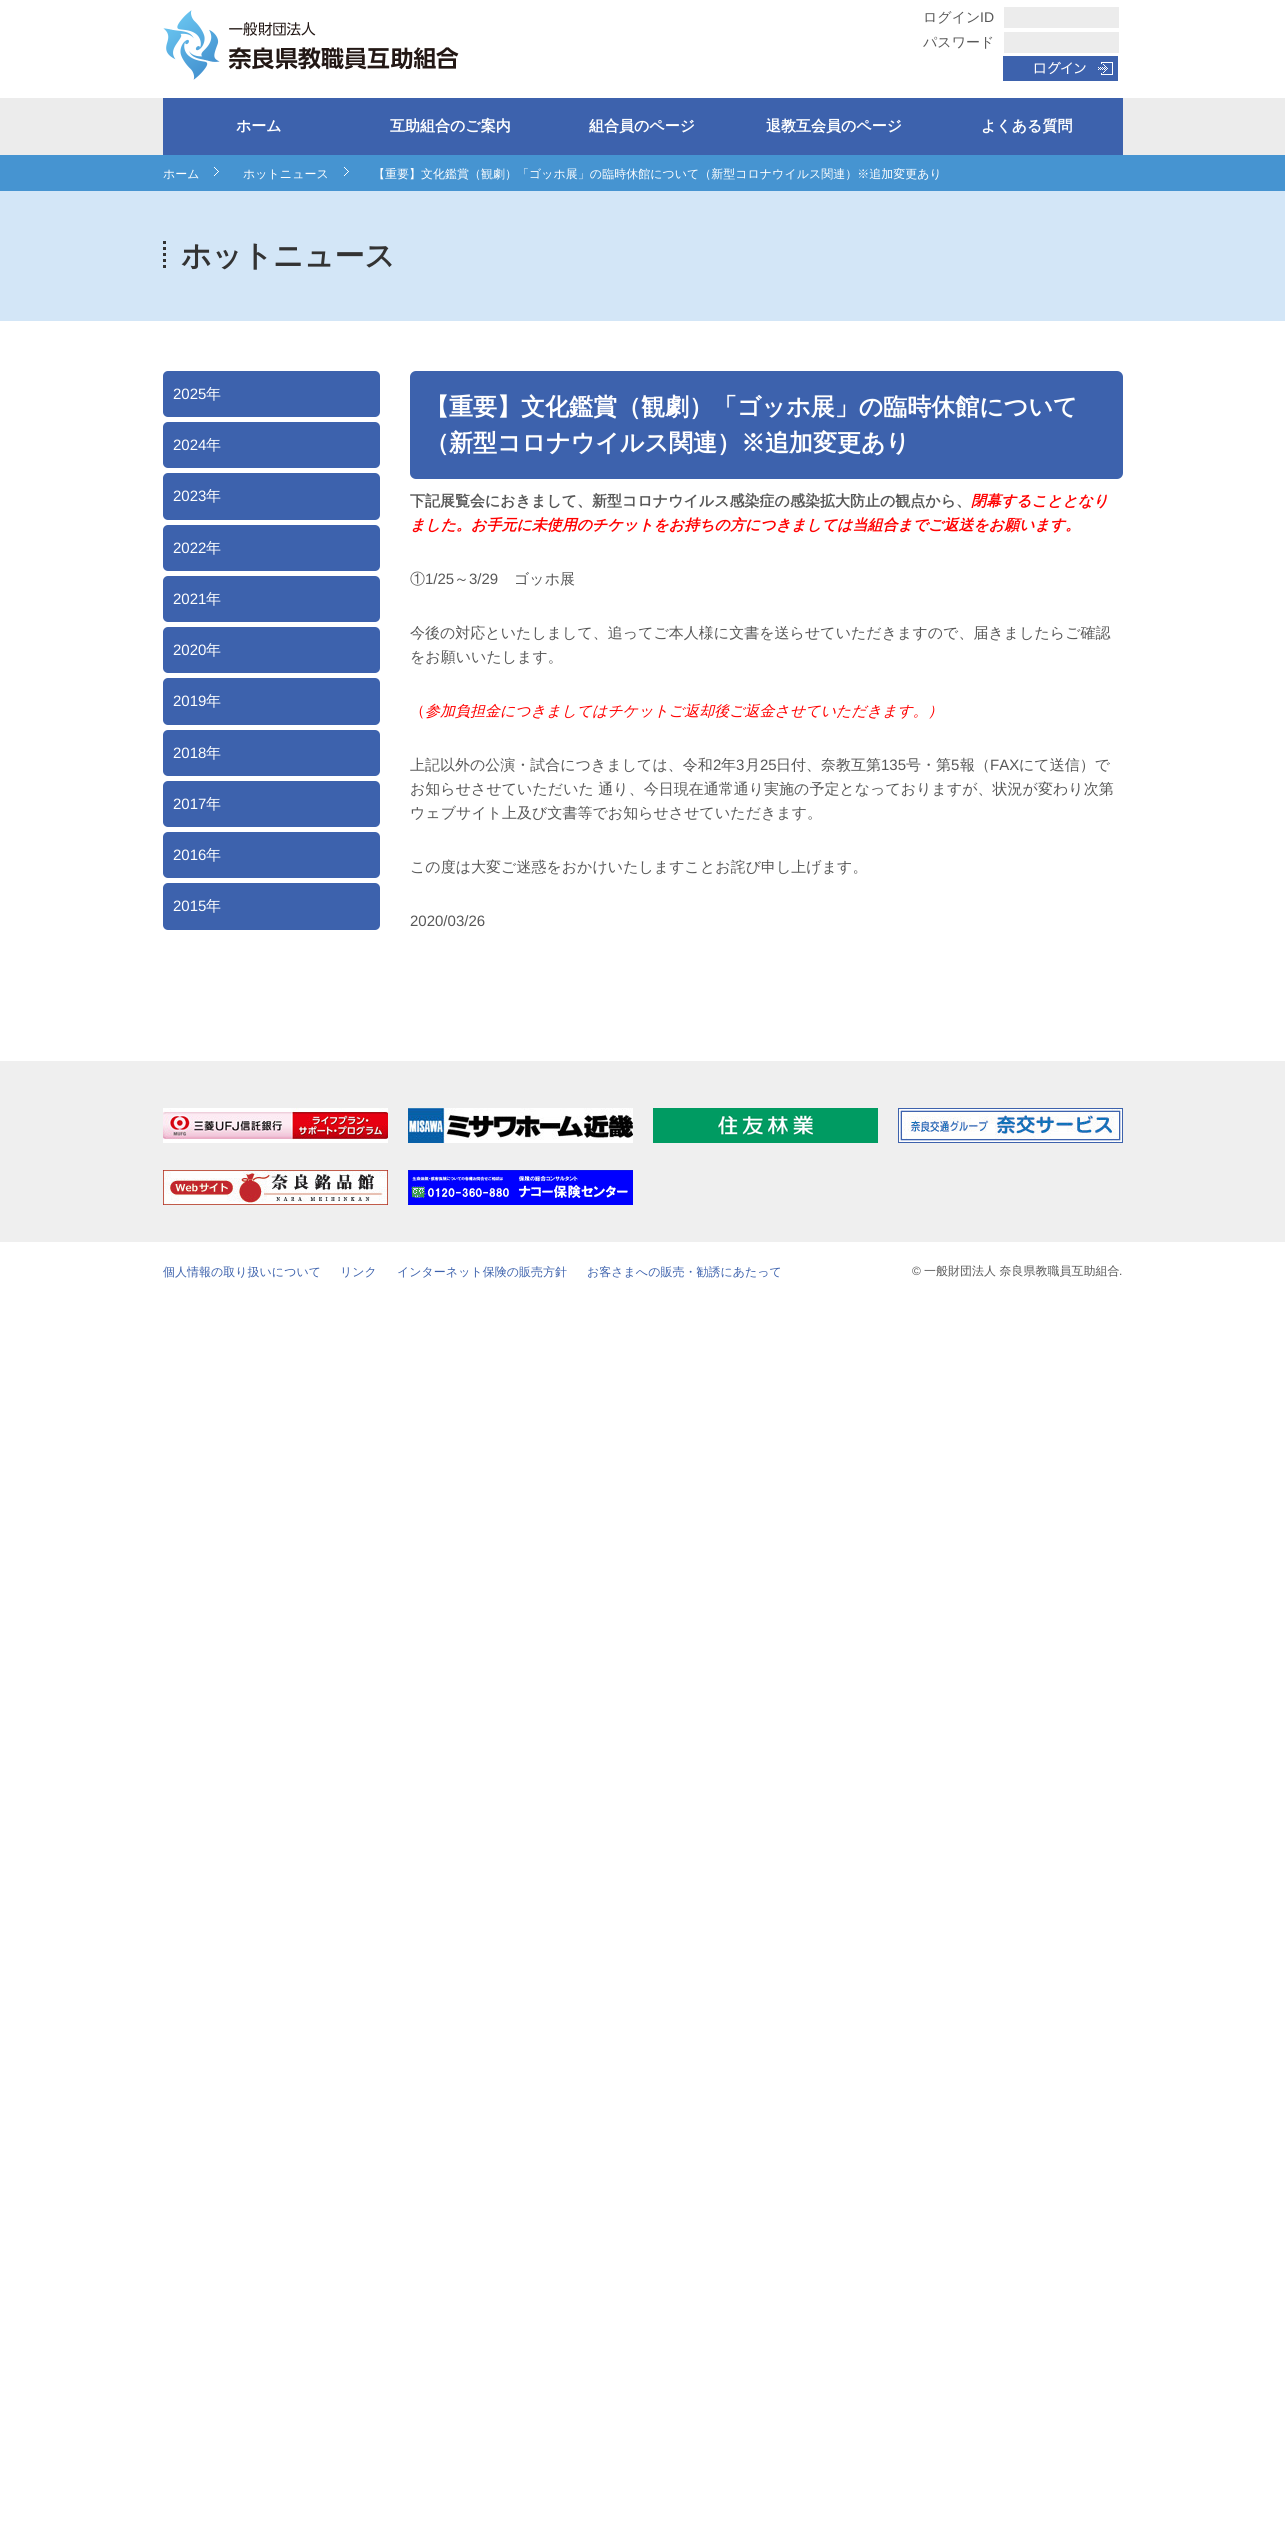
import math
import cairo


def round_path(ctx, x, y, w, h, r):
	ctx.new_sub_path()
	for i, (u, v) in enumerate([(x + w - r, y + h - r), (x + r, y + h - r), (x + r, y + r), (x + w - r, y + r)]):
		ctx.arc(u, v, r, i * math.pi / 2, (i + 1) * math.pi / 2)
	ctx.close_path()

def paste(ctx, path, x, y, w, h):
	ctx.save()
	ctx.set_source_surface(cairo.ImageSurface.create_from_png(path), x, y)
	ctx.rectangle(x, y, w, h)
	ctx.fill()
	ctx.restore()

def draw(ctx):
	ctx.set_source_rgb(1, 1, 1)
	ctx.paint()
	paste(ctx, 'media/1.png', 163, 10, 296, 70)
	ctx.select_font_face('WenQuanYi Zen Hei Medium')
	ctx.set_font_size(14)
	ctx.set_source_rgb(0.341, 0.341, 0.341)
	ctx.move_to(923, 22)
	ctx.show_text('ログイン')
	ctx.select_font_face('Liberation Sans')
	ctx.move_to(980, 22)
	ctx.show_text('ID')
	ctx.set_source_rgb(0.922, 0.922, 0.922)
	ctx.rectangle(1004, 7, 115, 21)
	ctx.fill()
	ctx.select_font_face('WenQuanYi Zen Hei Medium')
	ctx.set_source_rgb(0.341, 0.341, 0.341)
	ctx.move_to(923, 47)
	ctx.show_text('パスワード')
	ctx.set_source_rgb(0.922, 0.922, 0.922)
	ctx.rectangle(1004, 32, 115, 21)
	ctx.fill()
	paste(ctx, 'media/2.png', 1003, 56, 115, 25)
	ctx.rectangle(0, 98, 1285, 57)
	ctx.fill()
	ctx.set_source_rgb(0.239, 0.384, 0.678)
	ctx.rectangle(163, 98, 960, 57)
	ctx.fill()
	ctx.select_font_face('WenQuanYi Zen Hei', cairo.FONT_SLANT_NORMAL, cairo.FONT_WEIGHT_BOLD)
	ctx.set_font_size(15)
	ctx.set_source_rgb(1, 1, 1)
	for x, y, s in [
		(236, 131, 'ホーム'),
		(390, 131, '互助組合のご案内'),
		(589, 131, '組合員のページ'),
		(766, 131, '退教互会員のページ'),
		(981, 131, 'よくある質問'),
	]:
		ctx.move_to(x, y)
		ctx.show_text(s)
	ctx.set_source_rgb(0.275, 0.58, 0.82)
	ctx.rectangle(0, 155, 1285, 36)
	ctx.fill()
	ctx.select_font_face('WenQuanYi Zen Hei Medium')
	ctx.set_font_size(12)
	ctx.set_source_rgb(1, 1, 1)
	ctx.move_to(163, 178)
	ctx.show_text('ホーム')
	paste(ctx, 'media/3.png', 214, 167, 5, 9)
	ctx.move_to(243, 178)
	ctx.show_text('ホットニュース')
	paste(ctx, 'media/3.png', 344, 167, 5, 9)
	ctx.move_to(373, 178)
	ctx.show_text('【重要】文化鑑賞（観劇）「ゴッホ展」の臨時休館について（新型コロナウイルス関連）※追加変更あり')
	ctx.set_source_rgb(0.827, 0.902, 0.965)
	ctx.rectangle(0, 191, 1285, 130)
	ctx.fill()
	ctx.new_path()
	ctx.move_to(164.5, 241)
	ctx.line_to(164.5, 271)
	ctx.set_source_rgb(0.2, 0.2, 0.2)
	ctx.set_line_width(3)
	ctx.set_dash([3, 3])
	ctx.stroke()
	ctx.select_font_face('WenQuanYi Zen Hei', cairo.FONT_SLANT_NORMAL, cairo.FONT_WEIGHT_BOLD)
	ctx.set_font_size(30)
	ctx.move_to(181, 266)
	ctx.show_text('ホットニュース')
	ctx.set_source_rgb(0.239, 0.384, 0.678)
	round_path(ctx, 163, 371, 217, 46, 5)
	ctx.fill()
	ctx.select_font_face('Liberation Sans')
	ctx.set_font_size(15)
	ctx.set_source_rgb(1, 1, 1)
	ctx.move_to(173, 399)
	ctx.show_text('2025')
	ctx.select_font_face('WenQuanYi Zen Hei Medium')
	ctx.move_to(206, 399)
	ctx.show_text('年')
	ctx.set_source_rgb(0.239, 0.384, 0.678)
	round_path(ctx, 163, 422, 217, 46, 5)
	ctx.fill()
	ctx.select_font_face('Liberation Sans')
	ctx.set_source_rgb(1, 1, 1)
	ctx.move_to(173, 450)
	ctx.show_text('2024')
	ctx.select_font_face('WenQuanYi Zen Hei Medium')
	ctx.move_to(206, 450)
	ctx.show_text('年')
	ctx.set_source_rgb(0.239, 0.384, 0.678)
	round_path(ctx, 163, 473, 217, 47, 5)
	ctx.fill()
	ctx.select_font_face('Liberation Sans')
	ctx.set_source_rgb(1, 1, 1)
	ctx.move_to(173, 501)
	ctx.show_text('2023')
	ctx.select_font_face('WenQuanYi Zen Hei Medium')
	ctx.move_to(206, 501)
	ctx.show_text('年')
	ctx.set_source_rgb(0.239, 0.384, 0.678)
	round_path(ctx, 163, 525, 217, 46, 5)
	ctx.fill()
	ctx.select_font_face('Liberation Sans')
	ctx.set_source_rgb(1, 1, 1)
	ctx.move_to(173, 553)
	ctx.show_text('2022')
	ctx.select_font_face('WenQuanYi Zen Hei Medium')
	ctx.move_to(206, 553)
	ctx.show_text('年')
	ctx.set_source_rgb(0.239, 0.384, 0.678)
	round_path(ctx, 163, 576, 217, 46, 5)
	ctx.fill()
	ctx.select_font_face('Liberation Sans')
	ctx.set_source_rgb(1, 1, 1)
	ctx.move_to(173, 604)
	ctx.show_text('2021')
	ctx.select_font_face('WenQuanYi Zen Hei Medium')
	ctx.move_to(206, 604)
	ctx.show_text('年')
	ctx.set_source_rgb(0.239, 0.384, 0.678)
	round_path(ctx, 163, 627, 217, 46, 5)
	ctx.fill()
	ctx.select_font_face('Liberation Sans')
	ctx.set_source_rgb(1, 1, 1)
	ctx.move_to(173, 655)
	ctx.show_text('2020')
	ctx.select_font_face('WenQuanYi Zen Hei Medium')
	ctx.move_to(206, 655)
	ctx.show_text('年')
	ctx.set_source_rgb(0.239, 0.384, 0.678)
	round_path(ctx, 163, 678, 217, 47, 5)
	ctx.fill()
	ctx.select_font_face('Liberation Sans')
	ctx.set_source_rgb(1, 1, 1)
	ctx.move_to(173, 706)
	ctx.show_text('2019')
	ctx.select_font_face('WenQuanYi Zen Hei Medium')
	ctx.move_to(206, 706)
	ctx.show_text('年')
	ctx.set_source_rgb(0.239, 0.384, 0.678)
	round_path(ctx, 163, 730, 217, 46, 5)
	ctx.fill()
	ctx.select_font_face('Liberation Sans')
	ctx.set_source_rgb(1, 1, 1)
	ctx.move_to(173, 758)
	ctx.show_text('2018')
	ctx.select_font_face('WenQuanYi Zen Hei Medium')
	ctx.move_to(206, 758)
	ctx.show_text('年')
	ctx.set_source_rgb(0.239, 0.384, 0.678)
	round_path(ctx, 163, 781, 217, 46, 5)
	ctx.fill()
	ctx.select_font_face('Liberation Sans')
	ctx.set_source_rgb(1, 1, 1)
	ctx.move_to(173, 809)
	ctx.show_text('2017')
	ctx.select_font_face('WenQuanYi Zen Hei Medium')
	ctx.move_to(206, 809)
	ctx.show_text('年')
	ctx.set_source_rgb(0.239, 0.384, 0.678)
	round_path(ctx, 163, 832, 217, 46, 5)
	ctx.fill()
	ctx.select_font_face('Liberation Sans')
	ctx.set_source_rgb(1, 1, 1)
	ctx.move_to(173, 860)
	ctx.show_text('2016')
	ctx.select_font_face('WenQuanYi Zen Hei Medium')
	ctx.move_to(206, 860)
	ctx.show_text('年')
	ctx.set_source_rgb(0.239, 0.384, 0.678)
	round_path(ctx, 163, 883, 217, 47, 5)
	ctx.fill()
	ctx.select_font_face('Liberation Sans')
	ctx.set_source_rgb(1, 1, 1)
	ctx.move_to(173, 911)
	ctx.show_text('2015')
	ctx.select_font_face('WenQuanYi Zen Hei Medium')
	ctx.move_to(206, 911)
	ctx.show_text('年')
	ctx.set_source_rgb(0.239, 0.384, 0.678)
	round_path(ctx, 410, 371, 713, 108, 6)
	ctx.fill()
	ctx.select_font_face('WenQuanYi Zen Hei', cairo.FONT_SLANT_NORMAL, cairo.FONT_WEIGHT_BOLD)
	ctx.set_font_size(24)
	ctx.set_source_rgb(1, 1, 1)
	ctx.move_to(425, 415)
	ctx.show_text('【重要】文化鑑賞（観劇）「ゴッホ展」の臨時休館について')
	ctx.move_to(425, 451)
	ctx.show_text('（新型コロナウイルス関連）※追加変更あり')
	ctx.set_font_size(15)
	ctx.set_source_rgb(0.341, 0.341, 0.341)
	ctx.move_to(410, 506)
	ctx.show_text('下記展覧会におきまして、新型コロナウイルス感染症の感染拡大防止の観点から、')
	ctx.select_font_face('WenQuanYi Zen Hei', cairo.FONT_SLANT_ITALIC, cairo.FONT_WEIGHT_BOLD)
	ctx.set_source_rgb(1, 0, 0)
	ctx.move_to(971, 506)
	ctx.show_text('閉幕することとなり')
	ctx.move_to(410, 530)
	ctx.show_text('ました。お手元に未使用のチケットをお持ちの方につきましては当組合までご返送をお願います。')
	ctx.select_font_face('WenQuanYi Zen Hei Medium')
	ctx.set_source_rgb(0.341, 0.341, 0.341)
	ctx.move_to(410, 584)
	ctx.show_text('①')
	ctx.select_font_face('Liberation Sans')
	ctx.move_to(425, 584)
	ctx.show_text('1/25')
	ctx.select_font_face('WenQuanYi Zen Hei Medium')
	ctx.move_to(454, 584)
	ctx.show_text('～')
	ctx.select_font_face('Liberation Sans')
	ctx.move_to(469, 584)
	ctx.show_text('3/29')
	ctx.select_font_face('WenQuanYi Zen Hei Medium')
	for x, y, s in [
		(514, 584, 'ゴッホ展'),
		(410, 638, '今後の対応といたしまして、追ってご本人様に文書を送らせていただきますので、届きましたらご確認'),
		(410, 662, 'をお願いいたします。'),
	]:
		ctx.move_to(x, y)
		ctx.show_text(s)
	ctx.set_source_rgb(1, 0, 0)
	ctx.move_to(410, 716)
	ctx.show_text('（')
	ctx.select_font_face('WenQuanYi Zen Hei Medium', cairo.FONT_SLANT_ITALIC)
	ctx.move_to(425, 716)
	ctx.show_text('参加負担金につきましてはチケットご返却後ご返金させていただきます。）')
	ctx.select_font_face('WenQuanYi Zen Hei Medium')
	ctx.set_source_rgb(0.341, 0.341, 0.341)
	ctx.move_to(410, 770)
	ctx.show_text('上記以外の公演・試合につきましては、令和')
	ctx.select_font_face('Liberation Sans')
	ctx.move_to(713, 770)
	ctx.show_text('2')
	ctx.select_font_face('WenQuanYi Zen Hei Medium')
	ctx.move_to(721, 770)
	ctx.show_text('年')
	ctx.select_font_face('Liberation Sans')
	ctx.move_to(736, 770)
	ctx.show_text('3')
	ctx.select_font_face('WenQuanYi Zen Hei Medium')
	ctx.move_to(745, 770)
	ctx.show_text('月')
	ctx.select_font_face('Liberation Sans')
	ctx.move_to(760, 770)
	ctx.show_text('25')
	ctx.select_font_face('WenQuanYi Zen Hei Medium')
	ctx.move_to(776, 770)
	ctx.show_text('日付、奈教互第')
	ctx.select_font_face('Liberation Sans')
	ctx.move_to(881, 770)
	ctx.show_text('135')
	ctx.select_font_face('WenQuanYi Zen Hei Medium')
	ctx.move_to(906, 770)
	ctx.show_text('号・第')
	ctx.select_font_face('Liberation Sans')
	ctx.move_to(951, 770)
	ctx.show_text('5')
	ctx.select_font_face('WenQuanYi Zen Hei Medium')
	ctx.move_to(960, 770)
	ctx.show_text('報（')
	ctx.select_font_face('Liberation Sans')
	ctx.move_to(990, 770)
	ctx.show_text('FAX')
	ctx.select_font_face('WenQuanYi Zen Hei Medium')
	for x, y, s in [
		(1019, 770, 'にて送信）で'),
		(410, 794, 'お知らせさせていただいた 通り、今日現在通常通り実施の予定となっておりますが、状況が変わり次第'),
		(410, 818, 'ウェブサイト上及び文書等でお知らせさせていただきます。'),
		(410, 872, 'この度は大変ご迷惑をおかけいたしますことお詫び申し上げます。'),
	]:
		ctx.move_to(x, y)
		ctx.show_text(s)
	ctx.select_font_face('Liberation Sans')
	ctx.move_to(410, 926)
	ctx.show_text('2020/03/26')
	ctx.set_source_rgb(0.937, 0.937, 0.937)
	ctx.rectangle(0, 1061, 1285, 181)
	ctx.fill()
	paste(ctx, 'media/4.png', 163, 1108, 225, 35)
	paste(ctx, 'media/5.png', 408, 1108, 225, 35)
	paste(ctx, 'media/6.png', 653, 1108, 225, 35)
	paste(ctx, 'media/7.png', 898, 1108, 225, 35)
	paste(ctx, 'media/8.png', 163, 1170, 225, 35)
	paste(ctx, 'media/9.png', 408, 1170, 225, 35)
	ctx.select_font_face('WenQuanYi Zen Hei Medium')
	ctx.set_font_size(12)
	ctx.set_source_rgb(0.239, 0.384, 0.678)
	for x, y, s in [
		(163, 1276, '個人情報の取り扱いについて'),
		(340, 1276, 'リンク'),
		(397, 1276, 'インターネット保険の販売方針'),
		(587, 1276, 'お客さまへの販売・勧誘にあたって'),
	]:
		ctx.move_to(x, y)
		ctx.show_text(s)
	ctx.select_font_face('Liberation Sans')
	ctx.set_source_rgb(0.341, 0.341, 0.341)
	ctx.move_to(912, 1275)
	ctx.show_text('©')
	ctx.select_font_face('WenQuanYi Zen Hei Medium')
	ctx.move_to(924, 1275)
	ctx.show_text('一般財団法人 奈良県教職員互助組合')
	ctx.select_font_face('Liberation Sans')
	ctx.move_to(1119, 1275)
	ctx.show_text('.')


surface = cairo.ImageSurface(cairo.FORMAT_RGB24, 1285, 2546)
ctx = cairo.Context(surface)
options = cairo.FontOptions()
options.set_hint_metrics(cairo.HINT_METRICS_OFF)
options.set_hint_style(cairo.HINT_STYLE_NONE)
ctx.set_font_options(options)
ctx.set_miter_limit(4)
draw(ctx)
surface.write_to_png('image.png')
